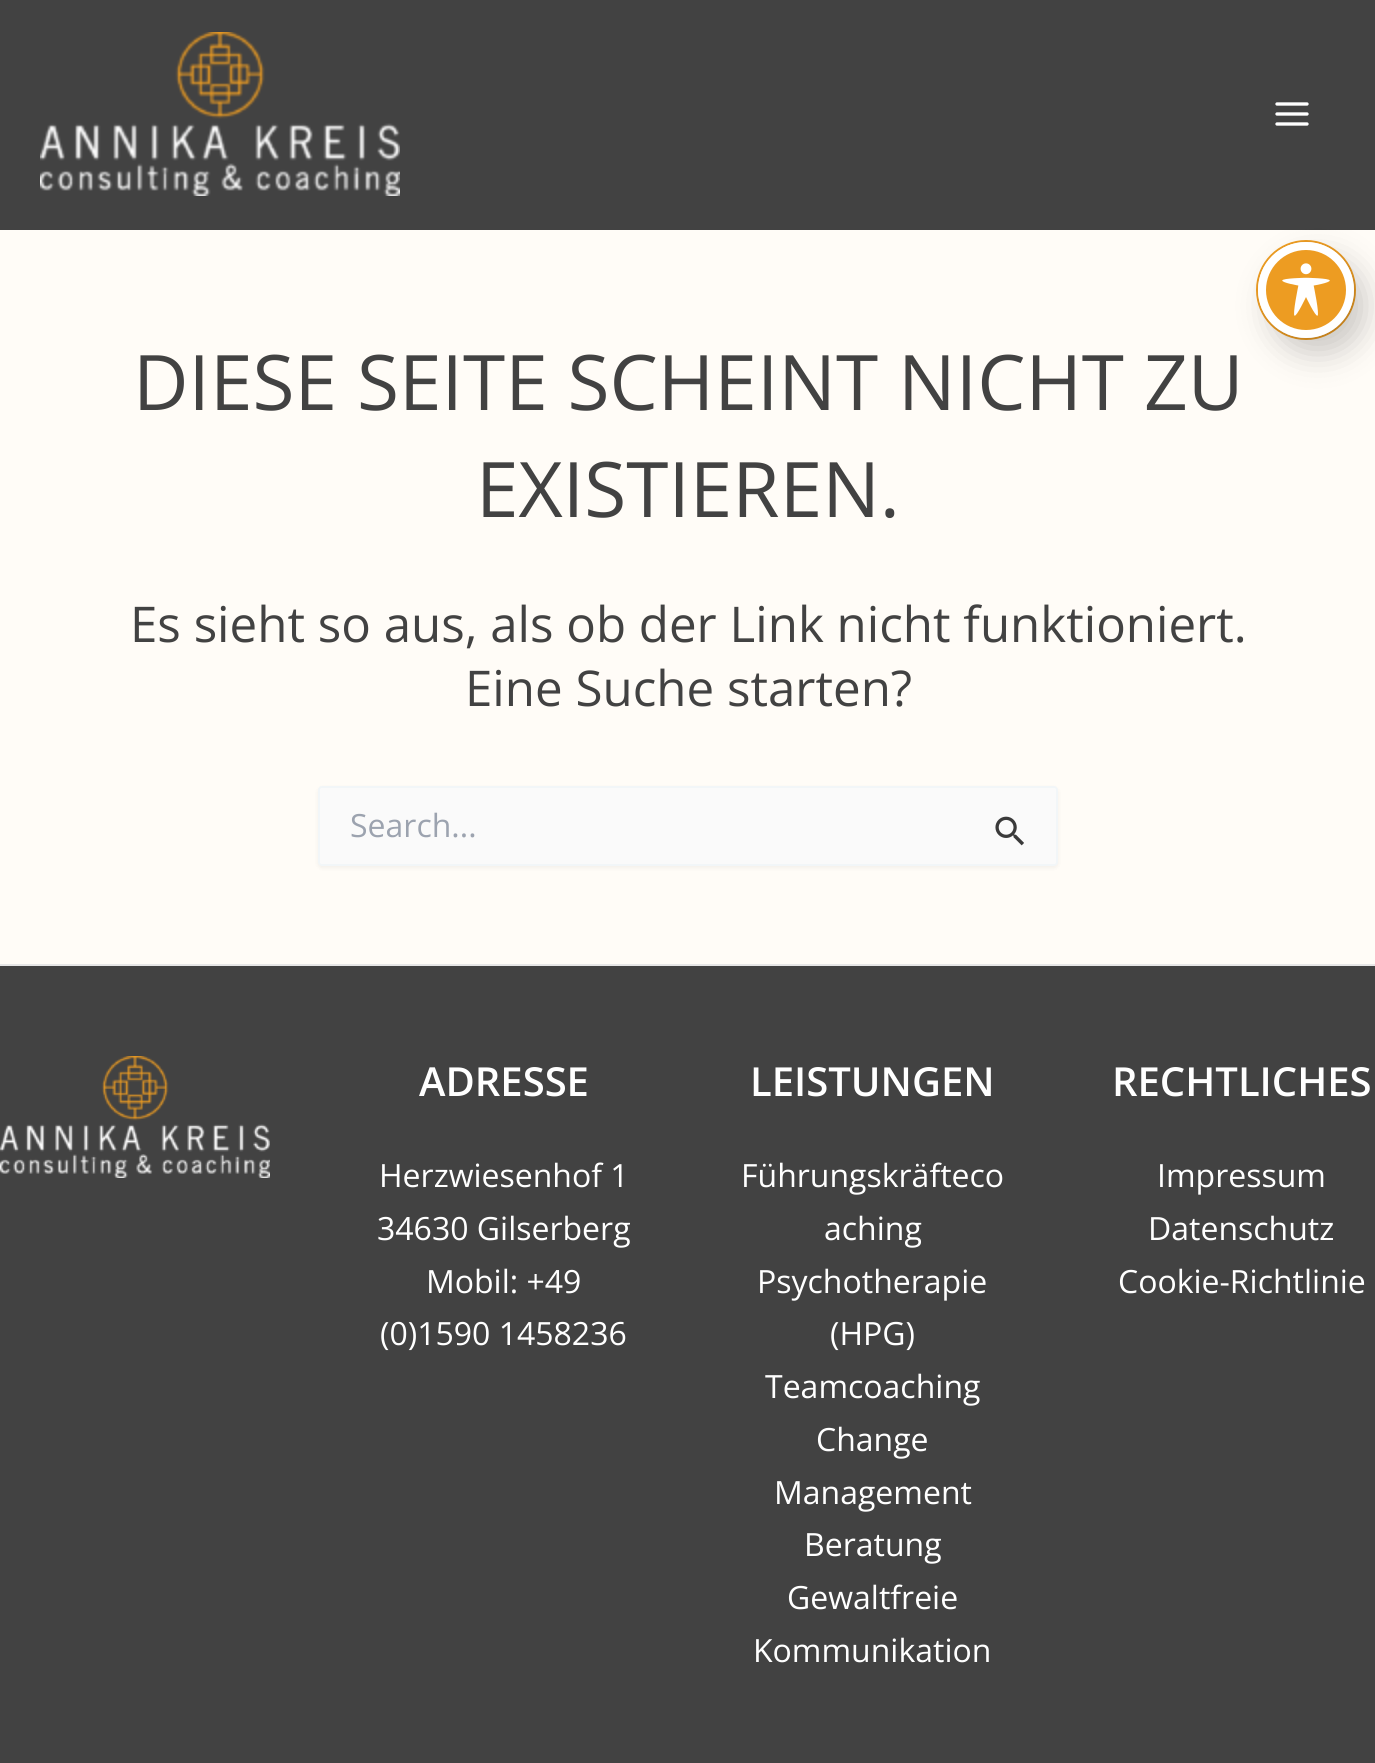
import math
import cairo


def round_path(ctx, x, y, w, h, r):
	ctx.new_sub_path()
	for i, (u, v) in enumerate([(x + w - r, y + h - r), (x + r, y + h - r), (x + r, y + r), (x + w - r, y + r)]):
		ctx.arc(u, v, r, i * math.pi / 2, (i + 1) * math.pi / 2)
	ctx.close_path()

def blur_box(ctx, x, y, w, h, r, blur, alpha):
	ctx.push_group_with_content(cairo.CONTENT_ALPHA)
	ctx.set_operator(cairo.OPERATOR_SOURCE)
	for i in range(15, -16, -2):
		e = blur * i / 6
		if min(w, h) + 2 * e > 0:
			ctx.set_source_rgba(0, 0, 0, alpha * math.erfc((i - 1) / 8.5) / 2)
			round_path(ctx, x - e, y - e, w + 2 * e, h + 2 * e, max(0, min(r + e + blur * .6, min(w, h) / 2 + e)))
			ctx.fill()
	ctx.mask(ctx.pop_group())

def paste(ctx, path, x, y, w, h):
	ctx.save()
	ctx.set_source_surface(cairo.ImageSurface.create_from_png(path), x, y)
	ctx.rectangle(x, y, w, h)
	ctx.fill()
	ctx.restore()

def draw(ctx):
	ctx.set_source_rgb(1, 0.988, 0.965)
	ctx.paint()
	ctx.arc(1306, 290, 49, 0, 2 * math.pi)
	ctx.set_source_rgb(0.929, 0.612, 0.133)
	ctx.stroke()
	ctx.set_source_rgb(0.259, 0.259, 0.259)
	ctx.rectangle(0, 0, 1375, 230)
	ctx.fill()
	ctx.set_source_rgb(0, 0, 0)
	blur_box(ctx, 1270, 258, 96, 96, 48, 16, 0.2)
	ctx.set_source_rgb(0.929, 0.612, 0.133)
	ctx.arc(1306, 290, 44, 0, 2 * math.pi)
	ctx.fill_preserve()
	ctx.set_source_rgb(1, 1, 1)
	ctx.set_line_width(8)
	ctx.stroke()
	paste(ctx, 'media/1.png', 1282, 263, 48, 53)
	paste(ctx, 'media/2.png', 40, 32, 360, 164)
	paste(ctx, 'media/3.png', 1275, 102, 34, 24)
	ctx.select_font_face('Open Sans')
	ctx.set_font_size(76.6)
	ctx.set_source_rgb(0.259, 0.259, 0.259)
	ctx.move_to(133, 410)
	ctx.show_text('DIESE SEITE SCHEINT NICHT ZU')
	ctx.move_to(476, 517)
	ctx.show_text('EXISTIEREN.')
	ctx.set_font_size(49.25)
	ctx.move_to(130, 642)
	ctx.show_text('Es sieht so aus, als ob der Link nicht funktioniert.')
	ctx.move_to(465, 706)
	ctx.show_text('Eine Suche starten?')
	ctx.set_source_rgb(0, 0, 0)
	blur_box(ctx, 318, 788, 740, 80, 4, 2, 0.05)
	ctx.set_source_rgb(0.98, 0.98, 0.98)
	round_path(ctx, 319, 787, 738, 78, 3)
	ctx.fill_preserve()
	ctx.set_source_rgb(0.949, 0.961, 0.969)
	ctx.set_line_width(2)
	ctx.stroke()
	ctx.set_font_size(32)
	ctx.set_source_rgb(0.612, 0.639, 0.686)
	ctx.move_to(350, 837)
	ctx.show_text('Search...')
	paste(ctx, 'media/4.png', 995, 816, 29, 30)
	ctx.set_source_rgb(0.259, 0.259, 0.259)
	ctx.rectangle(0, 966, 1375, 797)
	ctx.fill()
	ctx.set_source_rgb(0.902, 0.902, 0.902)
	ctx.rectangle(0, 964, 1375, 2)
	ctx.fill()
	paste(ctx, 'media/5.png', 0, 1056, 270, 122)
	ctx.select_font_face('Open Sans SemiBold')
	ctx.set_font_size(40)
	ctx.set_source_rgb(1, 1, 1)
	ctx.move_to(419, 1096)
	ctx.show_text('ADRESSE')
	ctx.select_font_face('Open Sans')
	ctx.set_font_size(32)
	for x, y, s in [
		(379, 1187, 'Herzwiesenhof 1'),
		(377, 1240, '34630 Gilserberg'),
		(426, 1293, 'Mobil: +49'),
		(380, 1345, '(0)1590 1458236'),
	]:
		ctx.move_to(x, y)
		ctx.show_text(s)
	ctx.select_font_face('Open Sans SemiBold')
	ctx.set_font_size(40)
	ctx.move_to(750, 1096)
	ctx.show_text('LEISTUNGEN')
	ctx.select_font_face('Open Sans')
	ctx.set_font_size(32)
	for x, y, s in [
		(741, 1187, 'Führungskräfteco'),
		(824, 1240, 'aching'),
		(757, 1293, 'Psychotherapie'),
		(830, 1345, '(HPG)'),
		(765, 1398, 'Teamcoaching'),
		(816, 1451, 'Change'),
		(774, 1504, 'Management'),
		(804, 1556, 'Beratung'),
		(787, 1609, 'Gewaltfreie'),
		(753, 1662, 'Kommunikation'),
	]:
		ctx.move_to(x, y)
		ctx.show_text(s)
	ctx.select_font_face('Open Sans SemiBold')
	ctx.set_font_size(40)
	ctx.move_to(1112, 1096)
	ctx.show_text('RECHTLICHES')
	ctx.select_font_face('Open Sans')
	ctx.set_font_size(32)
	for x, y, s in [
		(1157, 1187, 'Impressum'),
		(1148, 1240, 'Datenschutz'),
		(1118, 1293, 'Cookie-Richtlinie'),
	]:
		ctx.move_to(x, y)
		ctx.show_text(s)


surface = cairo.ImageSurface(cairo.FORMAT_RGB24, 1375, 1763)
ctx = cairo.Context(surface)
options = cairo.FontOptions()
options.set_hint_metrics(cairo.HINT_METRICS_OFF)
options.set_hint_style(cairo.HINT_STYLE_NONE)
ctx.set_font_options(options)
ctx.set_miter_limit(4)
draw(ctx)
surface.write_to_png('image.png')
